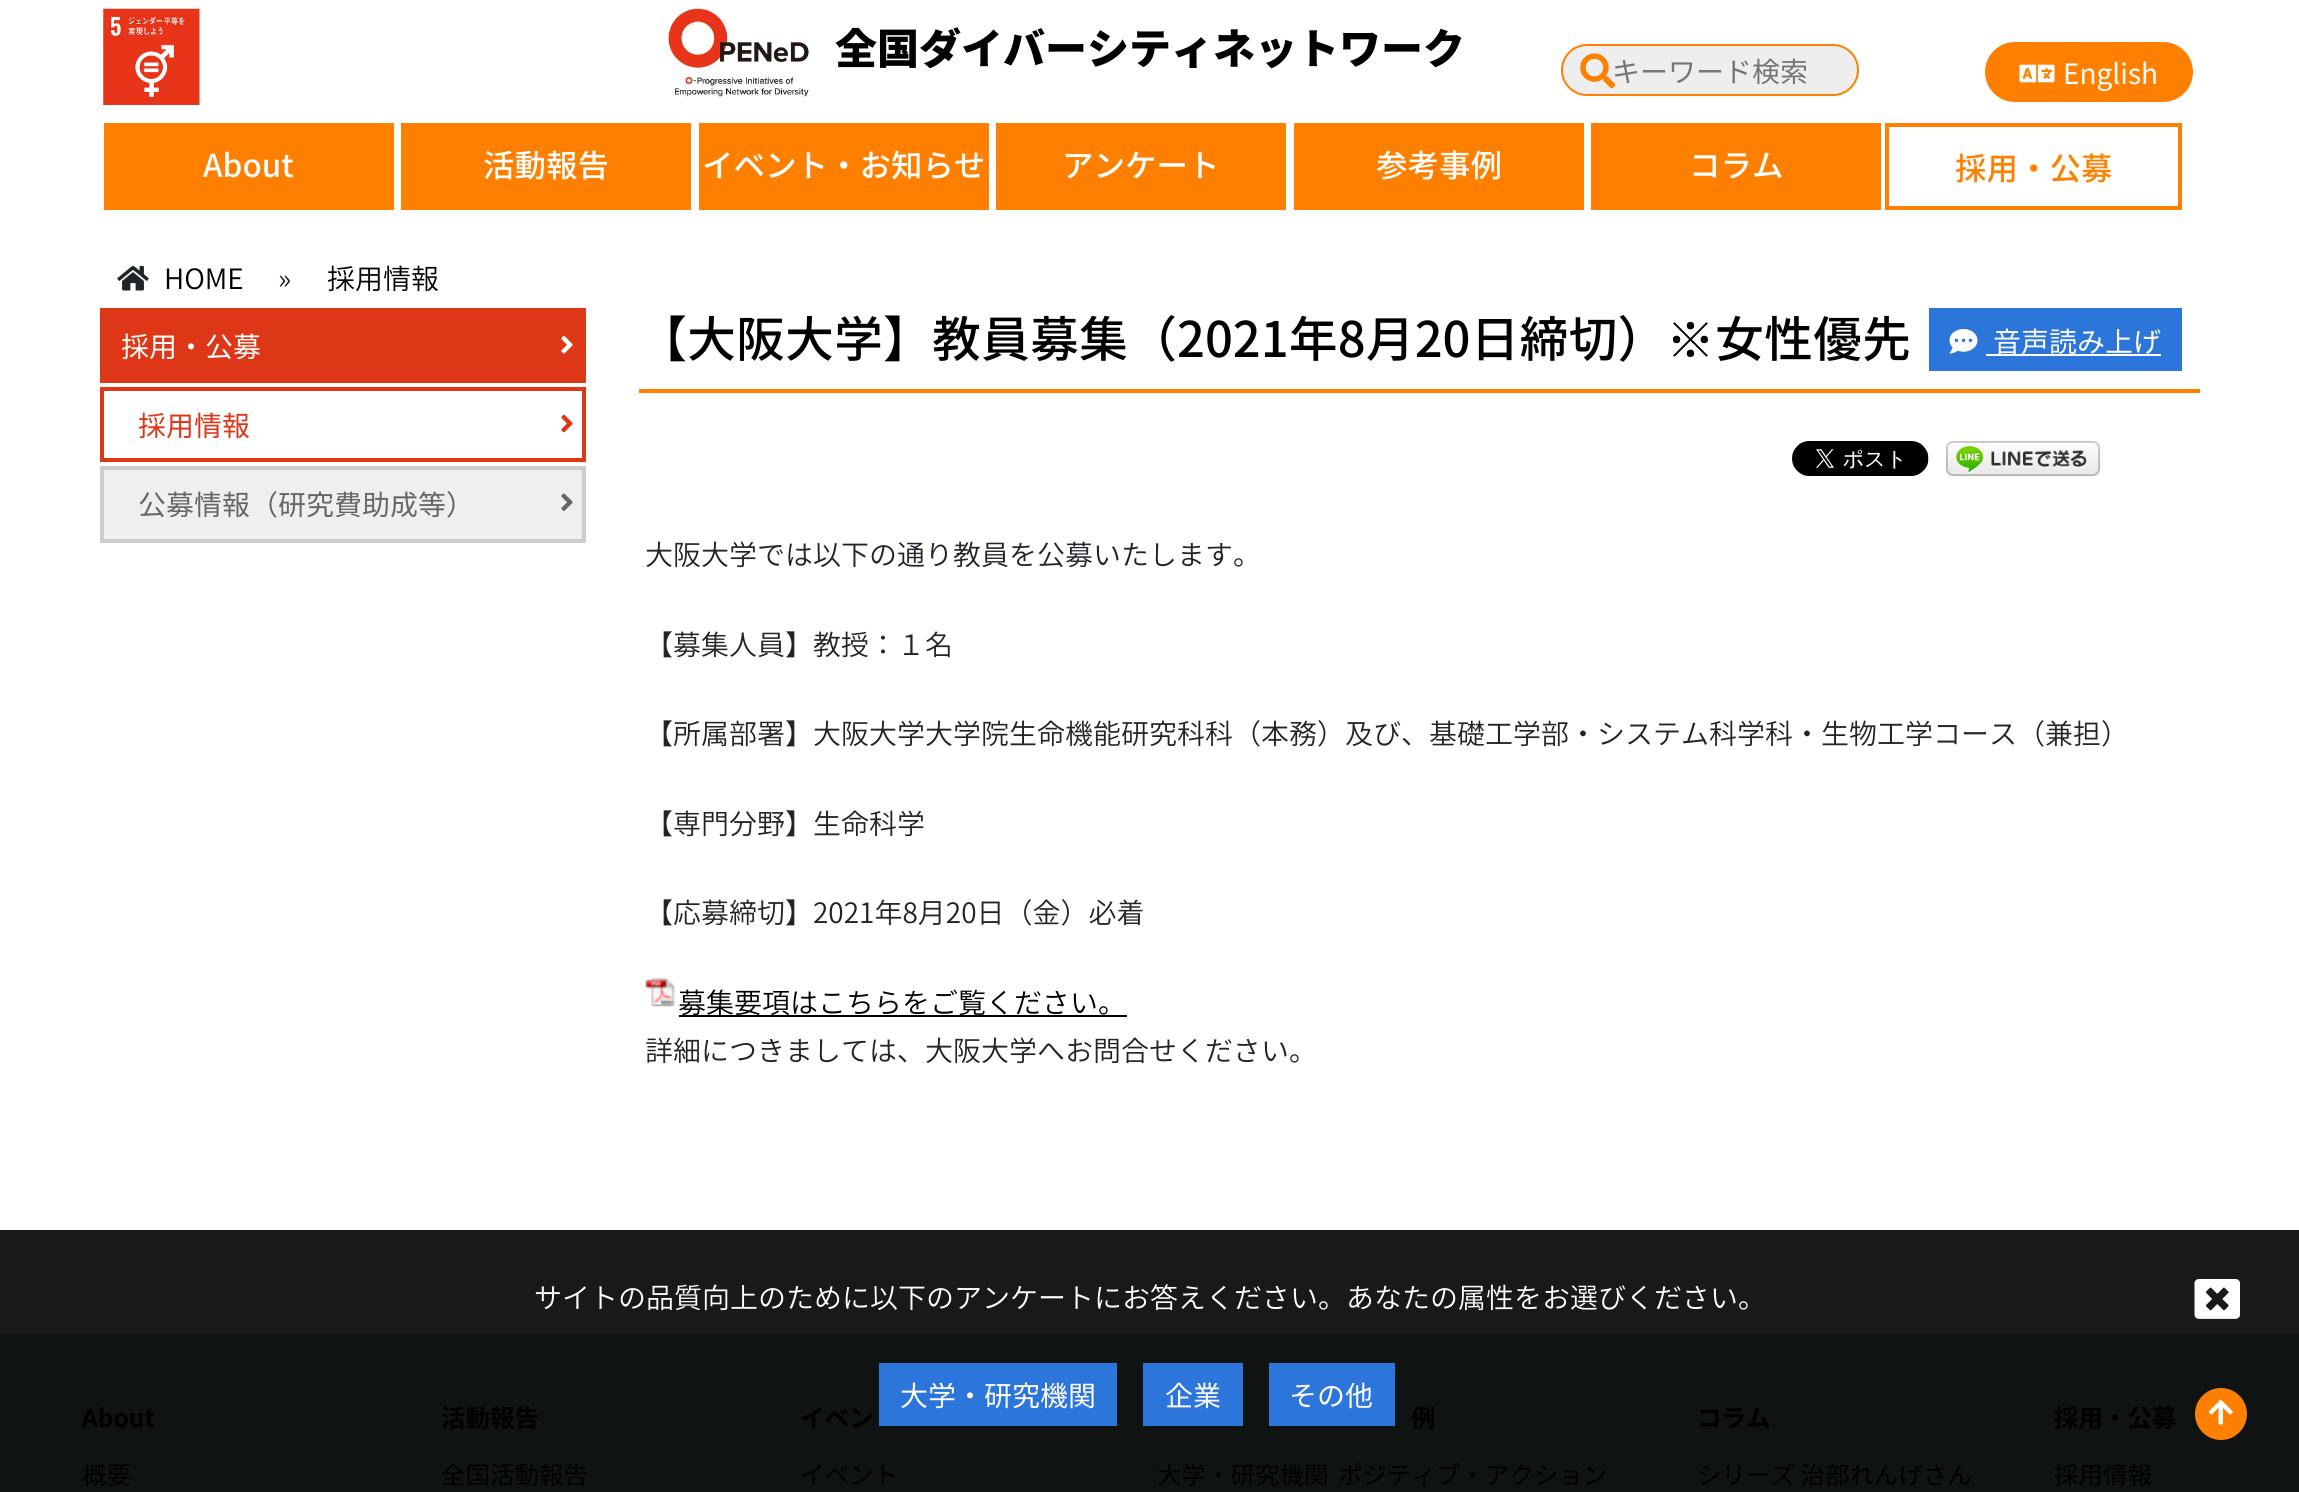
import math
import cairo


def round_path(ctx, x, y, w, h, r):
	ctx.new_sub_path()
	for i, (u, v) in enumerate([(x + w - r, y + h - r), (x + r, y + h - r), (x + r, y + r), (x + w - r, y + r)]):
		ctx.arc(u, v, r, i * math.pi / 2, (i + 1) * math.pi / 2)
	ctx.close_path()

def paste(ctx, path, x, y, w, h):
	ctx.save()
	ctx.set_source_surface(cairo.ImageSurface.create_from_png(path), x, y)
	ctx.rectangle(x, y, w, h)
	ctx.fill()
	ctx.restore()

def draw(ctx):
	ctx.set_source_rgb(1, 1, 1)
	ctx.paint()
	ctx.set_source_rgb(0.098, 0.098, 0.098)
	ctx.rectangle(0, 1230, 2299, 104)
	ctx.fill()
	paste(ctx, 'media/1.png', 103, 8, 97, 97)
	paste(ctx, 'media/2.png', 668, 8, 141, 89)
	ctx.select_font_face('Noto Sans JP Black')
	ctx.set_font_size(42)
	ctx.set_source_rgb(0, 0, 0)
	ctx.move_to(835, 64)
	ctx.show_text('全国ダイバーシティネットワーク')
	ctx.set_source_rgb(0.933, 0.933, 0.933)
	round_path(ctx, 1562, 45, 296, 50, 25)
	ctx.fill_preserve()
	ctx.set_source_rgb(1, 0.502, 0)
	ctx.stroke()
	ctx.select_font_face('Noto Sans JP')
	ctx.set_font_size(28)
	ctx.set_source_rgb(0.459, 0.459, 0.459)
	ctx.move_to(1612, 82)
	ctx.show_text('キーワード検索')
	paste(ctx, 'media/3.png', 1580, 53, 36, 36)
	ctx.set_source_rgb(1, 0.502, 0)
	round_path(ctx, 1985, 42, 208, 60, 30)
	ctx.fill()
	paste(ctx, 'media/4.png', 2019, 64, 36, 19)
	ctx.set_source_rgb(1, 1, 1)
	ctx.move_to(2063, 84)
	ctx.show_text('English')
	ctx.set_source_rgb(1, 0.502, 0)
	ctx.rectangle(104, 123, 290, 87)
	ctx.fill()
	ctx.select_font_face('Noto Sans JP Medium')
	ctx.set_font_size(31.5)
	ctx.set_source_rgb(1, 1, 1)
	ctx.move_to(203, 177)
	ctx.show_text('About')
	ctx.set_source_rgb(1, 0.502, 0)
	ctx.rectangle(401, 123, 290, 87)
	ctx.fill()
	ctx.set_source_rgb(1, 1, 1)
	ctx.move_to(483, 177)
	ctx.show_text('活動報告')
	ctx.set_source_rgb(1, 0.502, 0)
	ctx.rectangle(699, 123, 290, 87)
	ctx.fill()
	ctx.set_source_rgb(1, 1, 1)
	ctx.move_to(702, 177)
	ctx.show_text('イベント・お知らせ')
	ctx.set_source_rgb(1, 0.502, 0)
	ctx.rectangle(996, 123, 290, 87)
	ctx.fill()
	ctx.set_source_rgb(1, 1, 1)
	ctx.move_to(1062, 177)
	ctx.show_text('アンケート')
	ctx.set_source_rgb(1, 0.502, 0)
	ctx.rectangle(1294, 123, 290, 87)
	ctx.fill()
	ctx.set_source_rgb(1, 1, 1)
	ctx.move_to(1376, 177)
	ctx.show_text('参考事例')
	ctx.set_source_rgb(1, 0.502, 0)
	ctx.rectangle(1591, 123, 290, 87)
	ctx.fill()
	ctx.set_source_rgb(1, 1, 1)
	ctx.move_to(1689, 177)
	ctx.show_text('コラム')
	ctx.rectangle(1887, 125, 293, 83)
	ctx.set_source_rgb(1, 0.502, 0)
	ctx.set_line_width(4)
	ctx.stroke()
	ctx.move_to(1955, 180)
	ctx.show_text('採用・公募')
	paste(ctx, 'media/5.png', 117, 266, 32, 25)
	ctx.select_font_face('Noto Sans JP Light')
	ctx.set_font_size(28)
	ctx.set_source_rgb(0, 0, 0)
	ctx.move_to(164, 289)
	ctx.show_text('HOME')
	ctx.set_source_rgb(0.129, 0.145, 0.161)
	ctx.move_to(278, 289)
	ctx.show_text('»')
	ctx.set_source_rgb(0, 0, 0)
	ctx.move_to(327, 289)
	ctx.show_text('採用情報')
	ctx.set_source_rgb(0.871, 0.216, 0.09)
	ctx.rectangle(100, 308, 486, 75)
	ctx.fill()
	ctx.select_font_face('Noto Sans JP')
	ctx.set_source_rgb(1, 1, 1)
	ctx.move_to(121, 357)
	ctx.show_text('採用・公募')
	paste(ctx, 'media/6.png', 561, 336, 12, 18)
	ctx.rectangle(102, 389, 482, 71)
	ctx.set_source_rgb(0.871, 0.216, 0.09)
	ctx.stroke()
	ctx.move_to(138, 436)
	ctx.show_text('採用情報')
	paste(ctx, 'media/7.png', 561, 414, 12, 19)
	ctx.set_source_rgb(0.937, 0.937, 0.937)
	ctx.rectangle(102, 468, 482, 73)
	ctx.fill_preserve()
	ctx.set_source_rgb(0.8, 0.8, 0.8)
	ctx.stroke()
	ctx.set_source_rgb(0.4, 0.4, 0.4)
	ctx.move_to(138, 515)
	ctx.show_text('公募情報（研究費助成等）')
	paste(ctx, 'media/8.png', 561, 493, 12, 18)
	ctx.set_source_rgb(1, 0.502, 0)
	ctx.rectangle(639, 389, 1561, 4)
	ctx.fill()
	ctx.select_font_face('Noto Sans JP Medium')
	ctx.set_font_size(49)
	ctx.set_source_rgb(0, 0, 0)
	ctx.move_to(638, 357)
	ctx.show_text('【大阪大学】教員募集（2021年8月20日締切）')
	ctx.select_font_face('WenQuanYi Zen Hei Medium')
	ctx.move_to(1666, 357)
	ctx.show_text('※')
	ctx.select_font_face('Noto Sans JP Medium')
	ctx.move_to(1715, 357)
	ctx.show_text('女性優先')
	ctx.set_source_rgb(0.173, 0.459, 0.859)
	ctx.rectangle(1929, 308, 253, 63)
	ctx.fill()
	paste(ctx, 'media/9.png', 1949, 329, 29, 25)
	ctx.set_source_rgb(1, 1, 1)
	ctx.rectangle(1986, 354, 175, 2)
	ctx.fill()
	ctx.select_font_face('Noto Sans JP')
	ctx.set_font_size(28)
	ctx.move_to(1993, 352)
	ctx.show_text('音声読み上げ')
	paste(ctx, 'media/10.png', 1792, 441, 137, 35)
	paste(ctx, 'media/11.png', 1946, 441, 154, 35)
	ctx.select_font_face('Noto Sans JP Light')
	ctx.set_source_rgb(0.129, 0.145, 0.161)
	for x, y, s in [
		(645, 565, '大阪大学では以下の通り教員を公募いたします。'),
		(645, 655, '【募集人員】教授：１名'),
		(645, 744, '【所属部署】大阪大学大学院生命機能研究科科（本務）及び、基礎工学部・システム科学科・生物工学コース（兼担）'),
		(645, 834, '【専門分野】生命科学'),
		(645, 923, '【応募締切】2021年8月20日（金）必着'),
	]:
		ctx.move_to(x, y)
		ctx.show_text(s)
	paste(ctx, 'media/12.png', 645, 978, 31, 29)
	ctx.set_source_rgb(0, 0, 0)
	ctx.rectangle(679, 1015, 448, 2)
	ctx.fill()
	ctx.move_to(678, 1013)
	ctx.show_text('募集要項はこちらをご覧ください。')
	ctx.set_source_rgb(0.129, 0.145, 0.161)
	ctx.move_to(645, 1061)
	ctx.show_text('詳細につきましては、大阪大学へお問合せください。')
	ctx.set_source_rgb(1, 1, 1)
	ctx.move_to(534, 1308)
	ctx.show_text('サイトの品質向上のために以下のアンケートにお答えください。あなたの属性をお選びください。')
	paste(ctx, 'media/13.png', 2194, 1279, 46, 40)
	ctx.set_source_rgb(0.059, 0.082, 0.078)
	ctx.rectangle(0, 1334, 2299, 158)
	ctx.fill()
	ctx.set_source_rgb(0.173, 0.459, 0.859)
	ctx.rectangle(879, 1363, 238, 63)
	ctx.fill()
	ctx.select_font_face('Noto Sans JP')
	ctx.set_source_rgb(1, 1, 1)
	ctx.move_to(900, 1406)
	ctx.show_text('大学・研究機関')
	ctx.set_source_rgb(0.173, 0.459, 0.859)
	ctx.rectangle(1143, 1363, 100, 63)
	ctx.fill()
	ctx.set_source_rgb(1, 1, 1)
	ctx.move_to(1165, 1406)
	ctx.show_text('企業')
	ctx.set_source_rgb(0.173, 0.459, 0.859)
	ctx.rectangle(1269, 1363, 126, 63)
	ctx.fill()
	ctx.set_source_rgb(1, 1, 1)
	ctx.move_to(1289, 1406)
	ctx.show_text('その他')
	ctx.set_source_rgb(1, 0.502, 0)
	ctx.new_path()
	ctx.arc(2221, 1414, 26, 0, 2 * math.pi)
	ctx.fill()
	paste(ctx, 'media/14.png', 2208, 1400, 25, 25)
	ctx.select_font_face('Noto Sans JP', cairo.FONT_SLANT_NORMAL, cairo.FONT_WEIGHT_BOLD)
	ctx.set_font_size(24.5)
	ctx.set_source_rgb(0, 0, 0)
	ctx.move_to(82, 1427)
	ctx.show_text('About')
	ctx.select_font_face('Noto Sans JP Light')
	ctx.move_to(82, 1484)
	ctx.show_text('概要')
	ctx.select_font_face('Noto Sans JP', cairo.FONT_SLANT_NORMAL, cairo.FONT_WEIGHT_BOLD)
	ctx.move_to(441, 1427)
	ctx.show_text('活動報告')
	ctx.select_font_face('Noto Sans JP Light')
	ctx.move_to(441, 1484)
	ctx.show_text('全国活動報告')
	ctx.select_font_face('Noto Sans JP', cairo.FONT_SLANT_NORMAL, cairo.FONT_WEIGHT_BOLD)
	ctx.move_to(800, 1427)
	ctx.show_text('イベン')
	ctx.select_font_face('Noto Sans JP Light')
	ctx.move_to(800, 1484)
	ctx.show_text('イベント')
	ctx.move_to(1157, 1484)
	ctx.show_text('大学・研究機関')
	ctx.select_font_face('Noto Sans JP', cairo.FONT_SLANT_NORMAL, cairo.FONT_WEIGHT_BOLD)
	ctx.move_to(1411, 1427)
	ctx.show_text('例')
	ctx.select_font_face('Noto Sans JP Light')
	ctx.move_to(1338, 1484)
	ctx.show_text('ポジティブ・アクション')
	ctx.select_font_face('Noto Sans JP', cairo.FONT_SLANT_NORMAL, cairo.FONT_WEIGHT_BOLD)
	ctx.move_to(1697, 1427)
	ctx.show_text('コラム')
	ctx.select_font_face('Noto Sans JP Light')
	ctx.move_to(1697, 1484)
	ctx.show_text('シリーズ 治部れんげさん')
	ctx.select_font_face('Noto Sans JP', cairo.FONT_SLANT_NORMAL, cairo.FONT_WEIGHT_BOLD)
	ctx.move_to(2054, 1427)
	ctx.show_text('採用・公募')
	ctx.select_font_face('Noto Sans JP Light')
	ctx.move_to(2054, 1484)
	ctx.show_text('採用情報')


surface = cairo.ImageSurface(cairo.FORMAT_RGB24, 2299, 1492)
ctx = cairo.Context(surface)
options = cairo.FontOptions()
options.set_hint_metrics(cairo.HINT_METRICS_OFF)
options.set_hint_style(cairo.HINT_STYLE_NONE)
ctx.set_font_options(options)
ctx.set_miter_limit(4)
draw(ctx)
surface.write_to_png('image.png')
